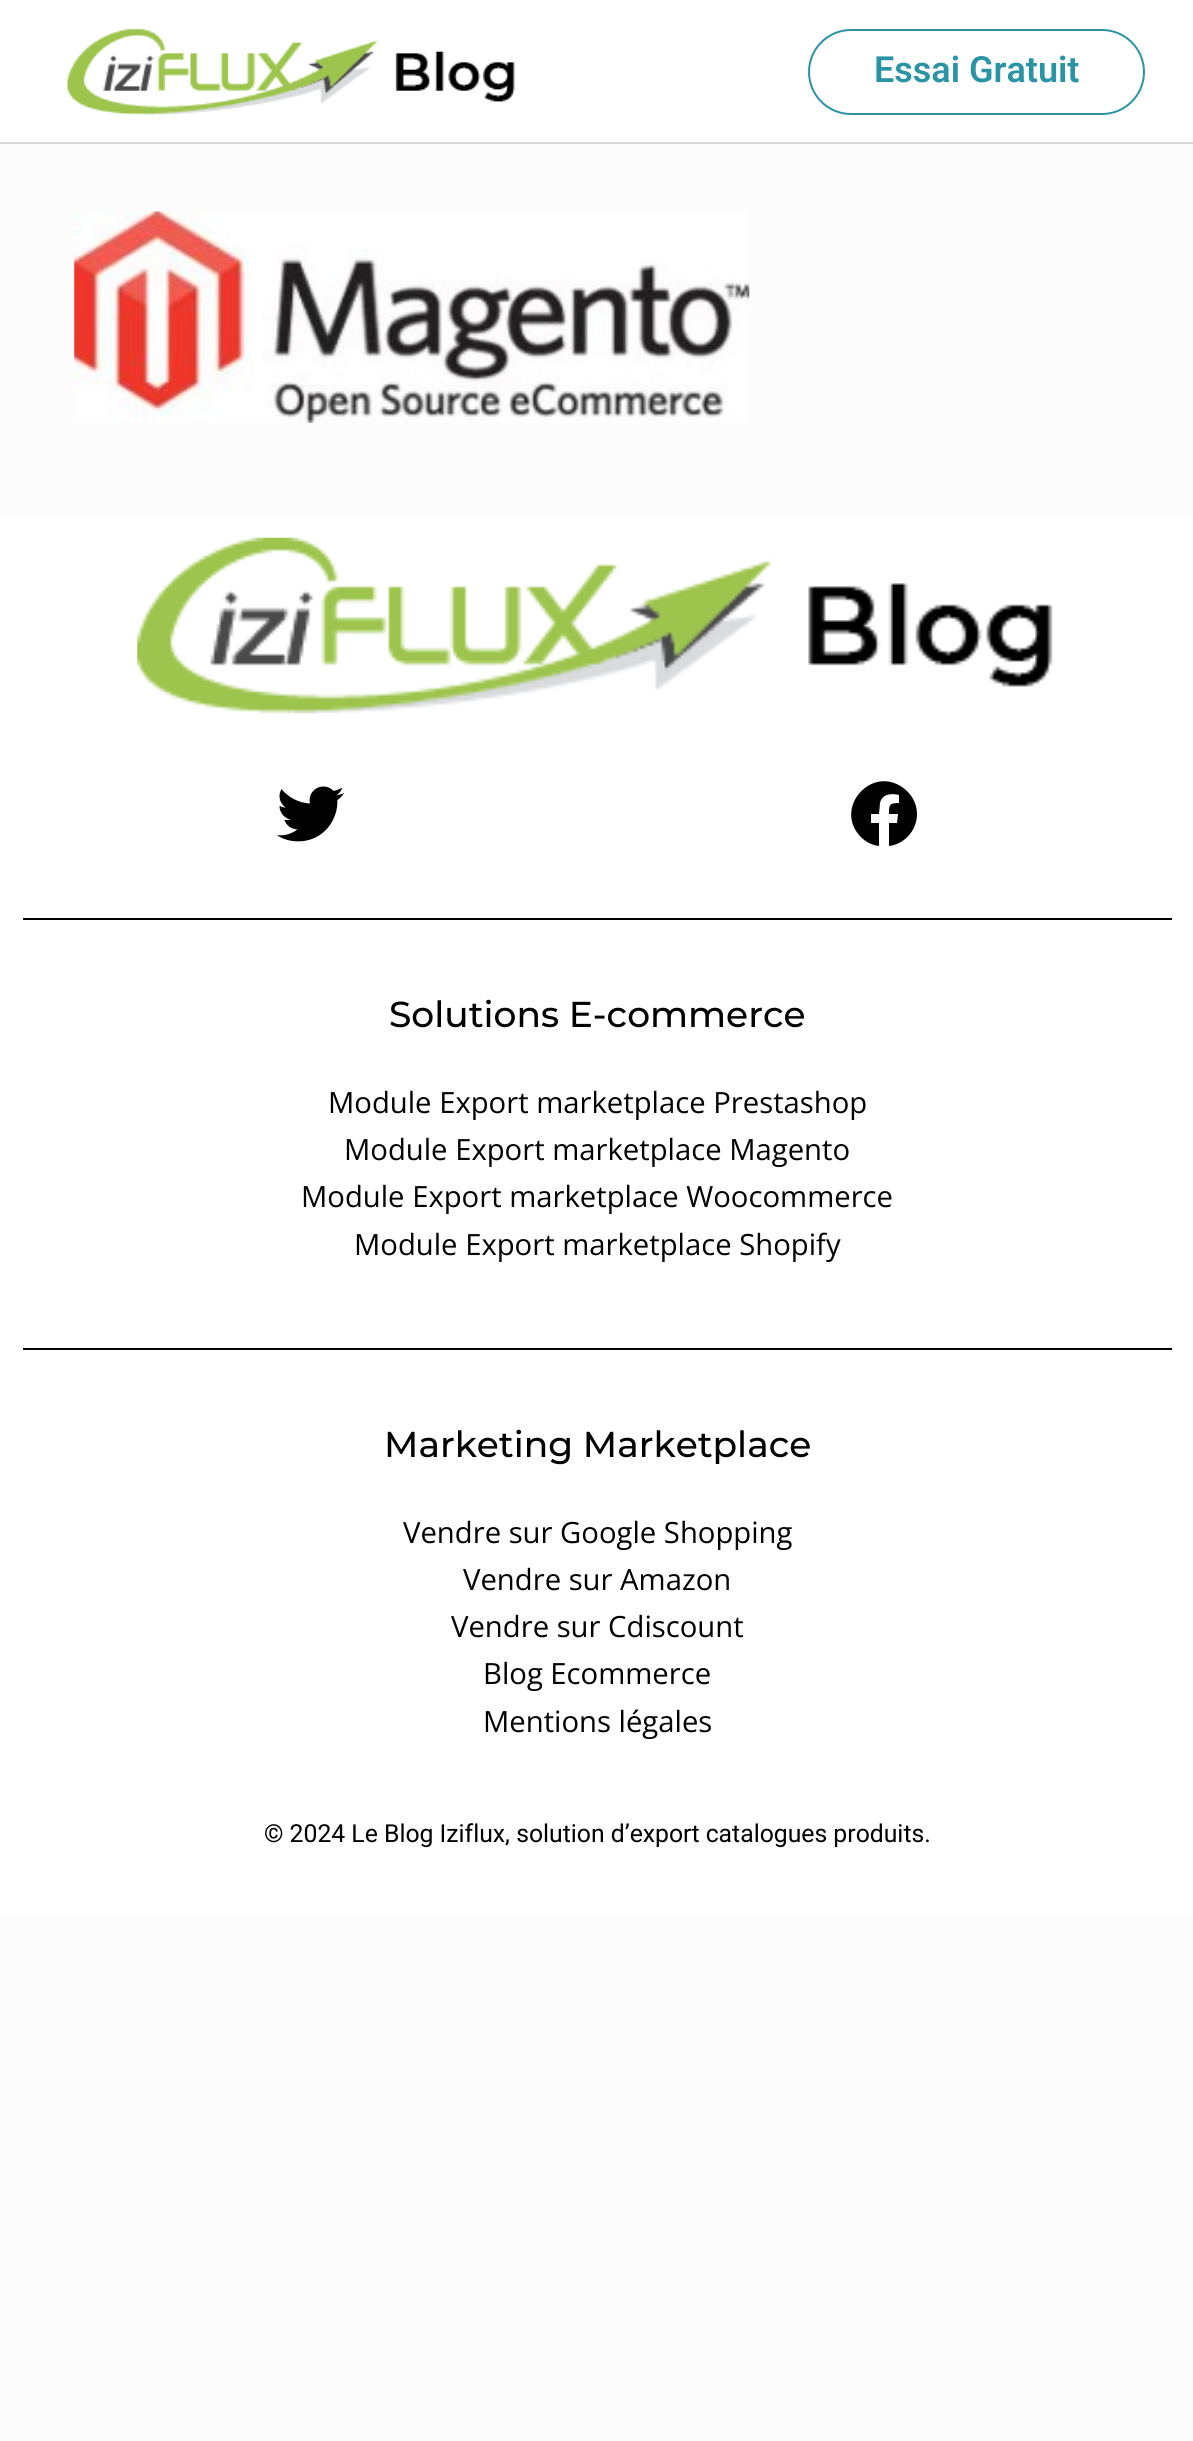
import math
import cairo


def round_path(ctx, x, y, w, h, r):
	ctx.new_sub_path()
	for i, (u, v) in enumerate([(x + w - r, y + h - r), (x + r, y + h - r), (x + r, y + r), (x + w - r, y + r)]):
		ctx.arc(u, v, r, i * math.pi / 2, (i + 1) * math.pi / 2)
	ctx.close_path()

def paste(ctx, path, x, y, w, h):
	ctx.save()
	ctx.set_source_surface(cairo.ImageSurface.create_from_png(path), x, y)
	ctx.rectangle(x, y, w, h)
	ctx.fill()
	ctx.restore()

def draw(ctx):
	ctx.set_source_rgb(0.988, 0.988, 0.988)
	ctx.paint()
	ctx.set_source_rgb(1, 1, 1)
	ctx.rectangle(0, 0, 1193, 142)
	ctx.fill()
	ctx.set_source_rgb(0.839, 0.839, 0.839)
	ctx.rectangle(0, 142, 1193, 2)
	ctx.fill()
	paste(ctx, 'media/1.png', 67, 29, 448, 86)
	round_path(ctx, 809, 30, 335, 84, 42)
	ctx.set_source_rgb(0.169, 0.58, 0.643)
	ctx.stroke()
	ctx.select_font_face('Roboto SemiBold')
	ctx.set_font_size(36)
	ctx.move_to(874, 82)
	ctx.show_text('Essai Gratuit')
	paste(ctx, 'media/2.png', 74, 211, 676, 212)
	ctx.set_source_rgb(1, 1, 1)
	ctx.rectangle(0, 515, 1193, 1400)
	ctx.fill()
	paste(ctx, 'media/3.png', 137, 537, 916, 177)
	paste(ctx, 'media/4.png', 277, 786, 68, 56)
	ctx.set_source_rgb(0, 0, 0)
	ctx.new_path()
	ctx.move_to(917, 814)
	ctx.curve_to(917, 830, 905, 844, 889, 846)
	ctx.line_to(889, 823)
	ctx.line_to(897, 823)
	ctx.line_to(898, 814)
	ctx.line_to(889, 814)
	ctx.curve_to(889, 805, 889, 803, 899, 803)
	ctx.line_to(899, 795)
	ctx.curve_to(891, 793, 882, 794, 880, 803)
	ctx.line_to(879, 814)
	ctx.line_to(871, 814)
	ctx.line_to(871, 823)
	ctx.line_to(879, 823)
	ctx.line_to(879, 846)
	ctx.curve_to(871, 845, 864, 841, 859, 835)
	ctx.curve_to(835, 807, 871, 766, 902, 787)
	ctx.curve_to(911, 793, 917, 803, 917, 814)
	ctx.close_path()
	ctx.fill()
	ctx.rectangle(23, 918, 1149, 2)
	ctx.fill()
	ctx.select_font_face('Montserrat Medium')
	ctx.move_to(389, 1027)
	ctx.show_text('Solutions E-commerce')
	ctx.select_font_face('Open Sans')
	ctx.set_font_size(29.25)
	for x, y, s in [
		(328, 1113, 'Module Export marketplace Prestashop'),
		(344, 1160, 'Module Export marketplace Magento'),
		(301, 1207, 'Module Export marketplace Woocommerce'),
		(354, 1255, 'Module Export marketplace Shopify'),
	]:
		ctx.move_to(x, y)
		ctx.show_text(s)
	ctx.rectangle(23, 1348, 1149, 2)
	ctx.fill()
	ctx.select_font_face('Montserrat Medium')
	ctx.set_font_size(36)
	ctx.move_to(384, 1457)
	ctx.show_text('Marketing Marketplace')
	ctx.select_font_face('Open Sans')
	ctx.set_font_size(29.25)
	for x, y, s in [
		(403, 1543, 'Vendre sur Google Shopping'),
		(463, 1590, 'Vendre sur Amazon'),
		(451, 1637, 'Vendre sur Cdiscount'),
		(483, 1684, 'Blog Ecommerce'),
		(483, 1732, 'Mentions légales'),
	]:
		ctx.move_to(x, y)
		ctx.show_text(s)
	ctx.select_font_face('Roboto')
	ctx.set_font_size(24.75)
	ctx.move_to(264, 1842)
	ctx.show_text('© 2024 Le Blog Iziflux, solution d’export catalogues produits.')


surface = cairo.ImageSurface(cairo.FORMAT_RGB24, 1193, 2441)
ctx = cairo.Context(surface)
options = cairo.FontOptions()
options.set_hint_metrics(cairo.HINT_METRICS_OFF)
options.set_hint_style(cairo.HINT_STYLE_NONE)
ctx.set_font_options(options)
ctx.set_miter_limit(4)
draw(ctx)
surface.write_to_png('image.png')
